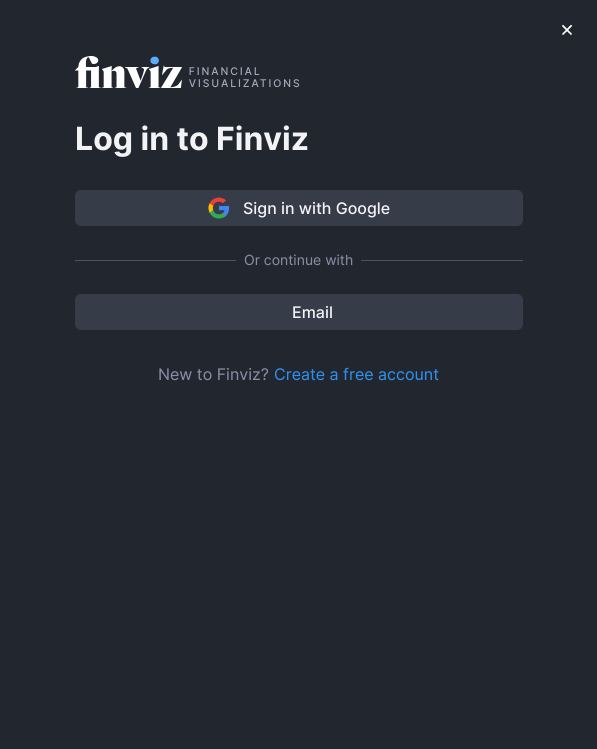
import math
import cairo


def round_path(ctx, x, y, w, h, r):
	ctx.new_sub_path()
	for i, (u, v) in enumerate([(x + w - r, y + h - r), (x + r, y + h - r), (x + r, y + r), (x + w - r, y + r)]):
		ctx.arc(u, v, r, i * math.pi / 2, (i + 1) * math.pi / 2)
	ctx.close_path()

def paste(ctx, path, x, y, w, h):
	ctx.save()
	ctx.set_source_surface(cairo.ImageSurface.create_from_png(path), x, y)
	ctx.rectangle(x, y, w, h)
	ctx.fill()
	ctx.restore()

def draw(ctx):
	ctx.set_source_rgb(0.133, 0.149, 0.184)
	ctx.paint()
	paste(ctx, 'media/1.png', 562, 24, 11, 11)
	paste(ctx, 'media/2.png', 75, 56, 225, 32)
	ctx.select_font_face('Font', cairo.FONT_SLANT_NORMAL, cairo.FONT_WEIGHT_BOLD)
	ctx.set_font_size(32)
	ctx.set_source_rgb(0.953, 0.953, 0.961)
	ctx.move_to(75, 150)
	ctx.show_text('Log in to Finviz')
	ctx.set_source_rgb(0.216, 0.235, 0.286)
	round_path(ctx, 75, 190, 448, 36, 6)
	ctx.fill()
	paste(ctx, 'media/3.png', 208, 197, 22, 22)
	ctx.select_font_face('Font Medium')
	ctx.set_font_size(16)
	ctx.set_source_rgb(0.953, 0.953, 0.961)
	ctx.move_to(243, 214)
	ctx.show_text('Sign in with Google')
	ctx.set_source_rgb(0.298, 0.322, 0.388)
	ctx.rectangle(75, 260, 161, 1)
	ctx.fill()
	ctx.select_font_face('Font')
	ctx.set_font_size(14)
	ctx.set_source_rgb(0.525, 0.557, 0.647)
	ctx.move_to(244, 265)
	ctx.show_text('Or continue with')
	ctx.set_source_rgb(0.298, 0.322, 0.388)
	ctx.rectangle(361, 260, 162, 1)
	ctx.fill()
	ctx.set_source_rgb(0.216, 0.235, 0.286)
	round_path(ctx, 75, 294, 448, 36, 6)
	ctx.fill()
	ctx.select_font_face('Font Medium')
	ctx.set_font_size(16)
	ctx.set_source_rgb(0.953, 0.953, 0.961)
	ctx.move_to(292, 318)
	ctx.show_text('Email')
	ctx.select_font_face('Font')
	ctx.set_source_rgb(0.525, 0.557, 0.647)
	ctx.move_to(158, 380)
	ctx.show_text('New to Finviz?')
	ctx.set_source_rgb(0.184, 0.569, 0.937)
	ctx.move_to(274, 380)
	ctx.show_text('Create a free account')


surface = cairo.ImageSurface(cairo.FORMAT_RGB24, 597, 749)
ctx = cairo.Context(surface)
options = cairo.FontOptions()
options.set_hint_metrics(cairo.HINT_METRICS_OFF)
options.set_hint_style(cairo.HINT_STYLE_NONE)
ctx.set_font_options(options)
ctx.set_miter_limit(4)
draw(ctx)
surface.write_to_png('image.png')
